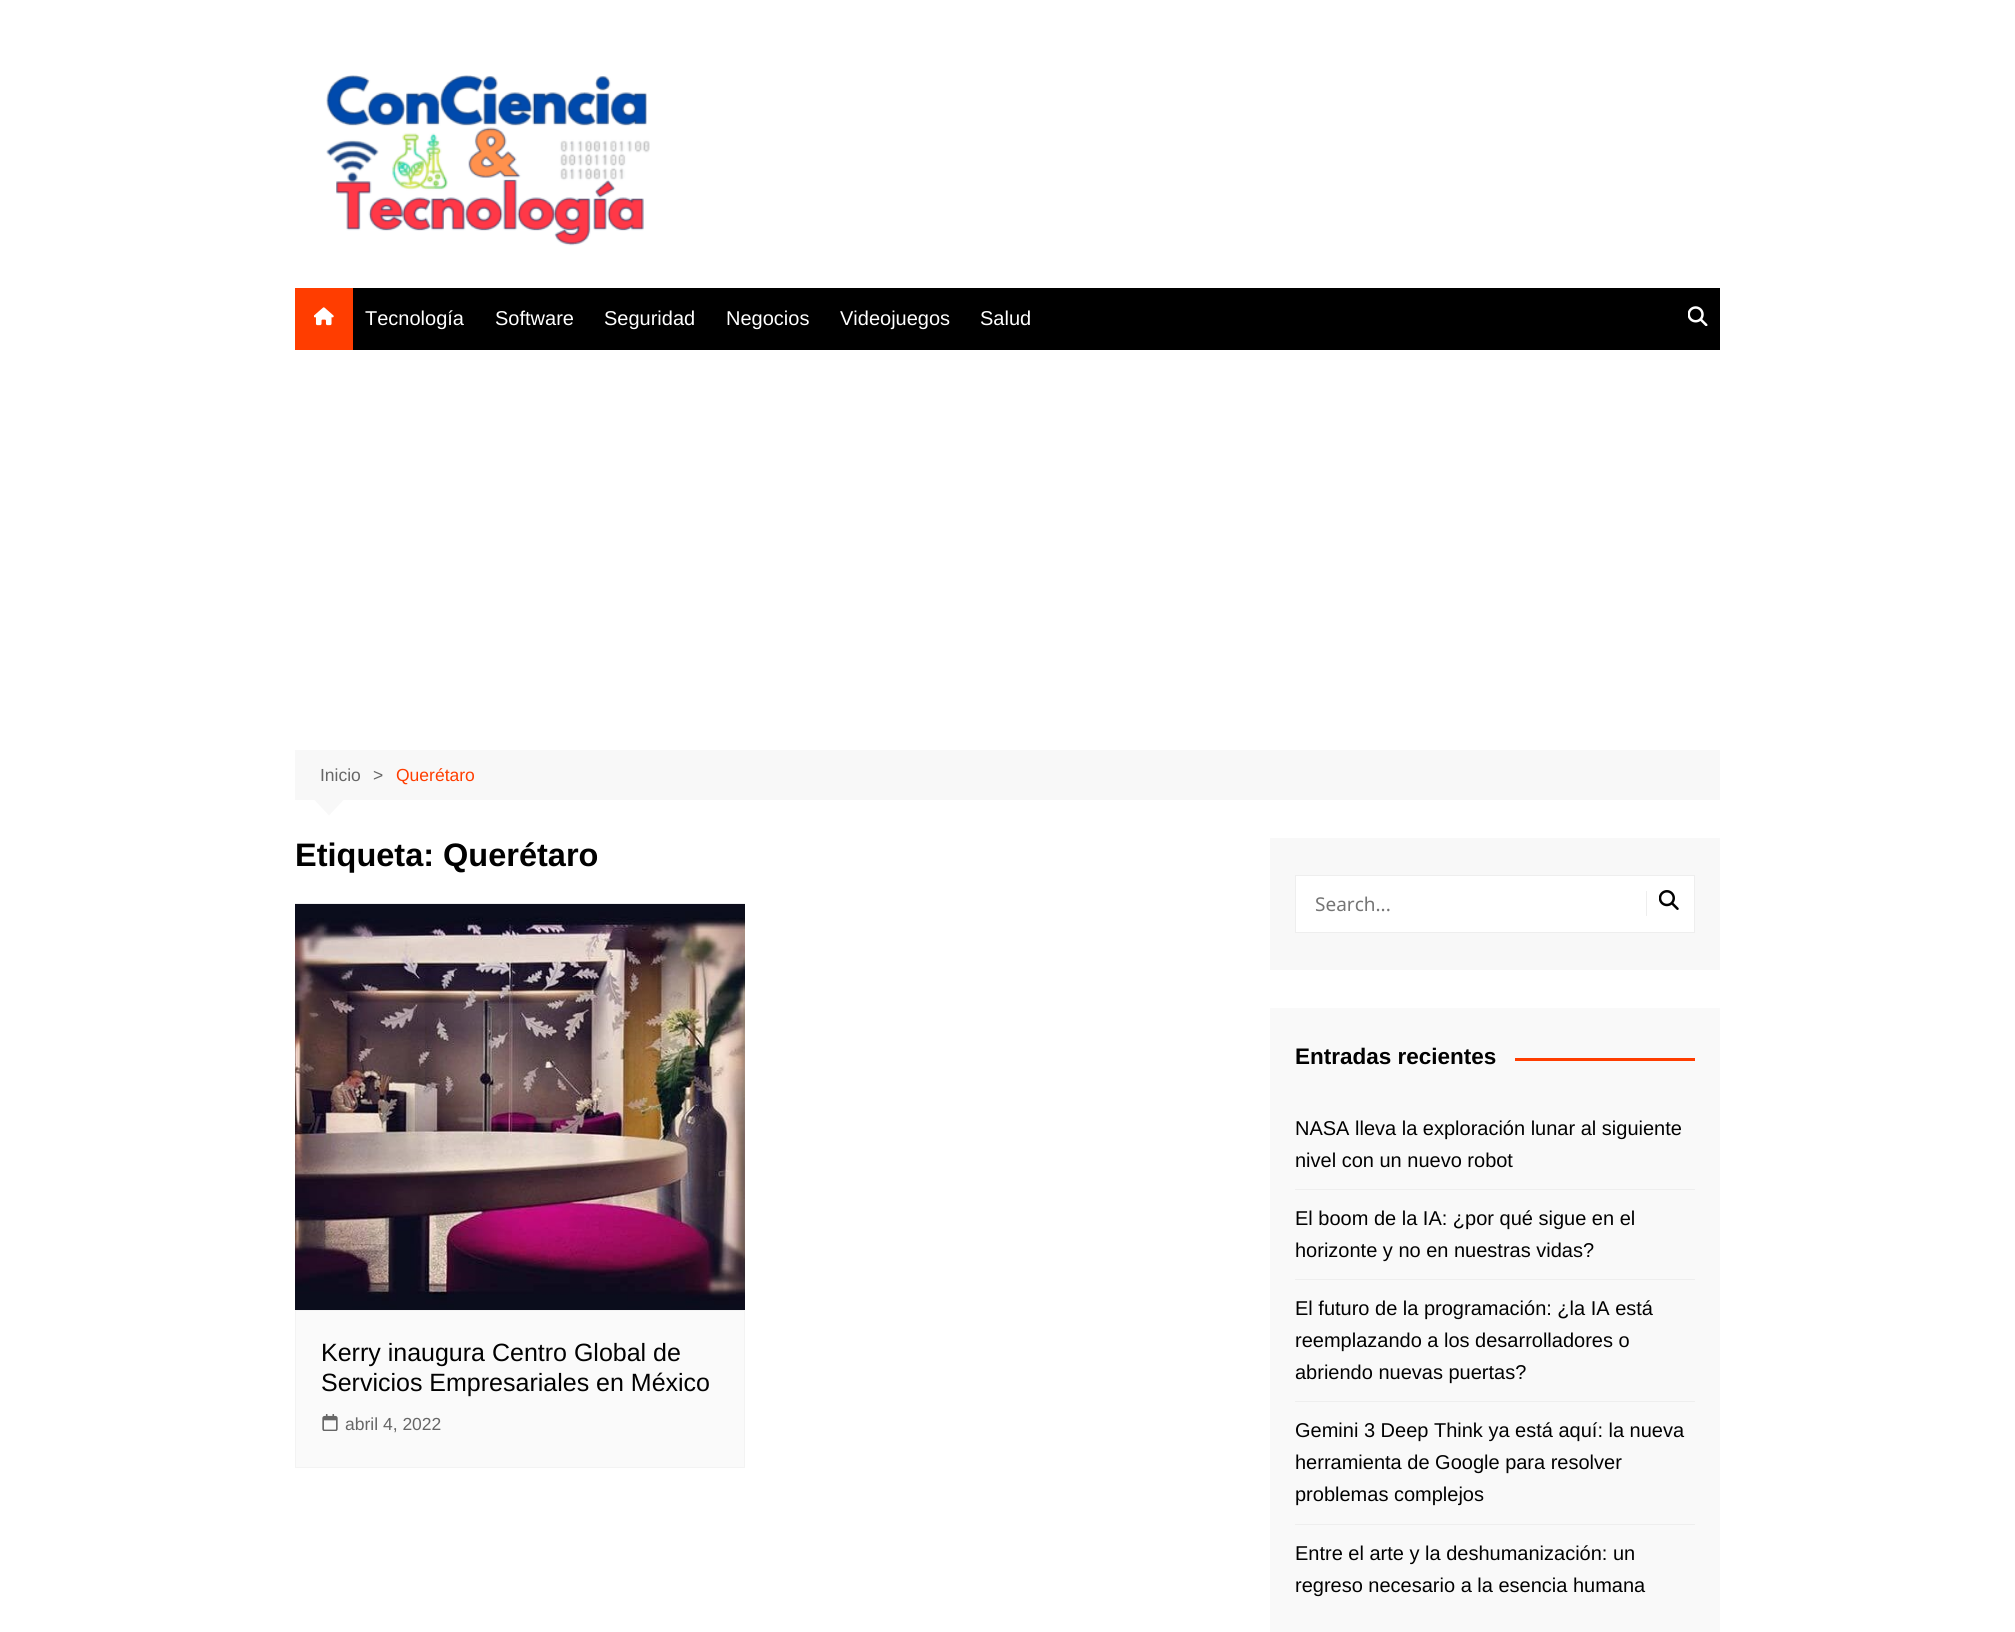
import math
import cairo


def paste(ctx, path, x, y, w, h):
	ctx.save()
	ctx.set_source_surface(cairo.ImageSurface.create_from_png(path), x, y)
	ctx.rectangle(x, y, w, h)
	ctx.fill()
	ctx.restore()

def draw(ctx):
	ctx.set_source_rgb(1, 1, 1)
	ctx.paint()
	paste(ctx, 'media/1.png', 326, 75, 324, 171)
	ctx.set_source_rgb(0, 0, 0)
	ctx.rectangle(353, 288, 1367, 62)
	ctx.fill()
	ctx.set_source_rgb(1, 0.239, 0)
	ctx.rectangle(295, 288, 58, 62)
	ctx.fill()
	paste(ctx, 'media/2.png', 314, 307, 20, 19)
	ctx.select_font_face('Liberation Sans')
	ctx.set_font_size(20)
	ctx.set_source_rgb(1, 1, 1)
	for x, y, s in [
		(365, 325, 'Tecnología'),
		(495, 325, 'Software'),
		(604, 325, 'Seguridad'),
		(726, 325, 'Negocios'),
		(840, 325, 'Videojuegos'),
		(980, 325, 'Salud'),
	]:
		ctx.move_to(x, y)
		ctx.show_text(s)
	paste(ctx, 'media/3.png', 1688, 306, 20, 20)
	ctx.set_source_rgb(0.969, 0.969, 0.969)
	ctx.rectangle(295, 750, 1425, 50)
	ctx.fill()
	ctx.set_font_size(17.5)
	ctx.set_source_rgb(0.4, 0.4, 0.4)
	ctx.move_to(320, 781)
	ctx.show_text('Inicio')
	ctx.move_to(373, 781)
	ctx.show_text('>')
	ctx.set_source_rgb(1, 0.239, 0)
	ctx.move_to(396, 781)
	ctx.show_text('Querétaro')
	ctx.set_source_rgb(0.969, 0.969, 0.969)
	ctx.new_path()
	ctx.move_to(314, 799.5)
	ctx.line_to(344, 799.5)
	ctx.line_to(329, 815.5)
	ctx.close_path()
	ctx.fill()
	ctx.select_font_face('Liberation Sans', cairo.FONT_SLANT_NORMAL, cairo.FONT_WEIGHT_BOLD)
	ctx.set_font_size(32.5)
	ctx.set_source_rgb(0.004, 0.004, 0.004)
	ctx.move_to(295, 866)
	ctx.show_text('Etiqueta: Querétaro')
	paste(ctx, 'media/4.png', 295, 903, 450, 407)
	ctx.set_source_rgb(0.98, 0.98, 0.98)
	ctx.rectangle(295.5, 1310.5, 449, 157)
	ctx.fill_preserve()
	ctx.set_source_rgb(0.953, 0.953, 0.953)
	ctx.set_line_width(1)
	ctx.stroke()
	ctx.select_font_face('Liberation Sans')
	ctx.set_font_size(25)
	ctx.set_source_rgb(0.004, 0.004, 0.004)
	ctx.move_to(321, 1361)
	ctx.show_text('Kerry inaugura Centro Global de')
	ctx.move_to(321, 1391)
	ctx.show_text('Servicios Empresariales en México')
	paste(ctx, 'media/5.png', 322, 1414, 16, 17)
	ctx.set_font_size(17.5)
	ctx.set_source_rgb(0.4, 0.4, 0.4)
	ctx.move_to(345, 1430)
	ctx.show_text('abril 4, 2022')
	ctx.set_source_rgb(0.969, 0.969, 0.969)
	ctx.rectangle(1270, 838, 450, 132)
	ctx.fill()
	ctx.set_source_rgb(1, 1, 1)
	ctx.rectangle(1295.5, 875.5, 399, 57)
	ctx.fill_preserve()
	ctx.set_source_rgb(0.933, 0.933, 0.933)
	ctx.stroke()
	ctx.select_font_face('Noto Sans')
	ctx.set_font_size(19)
	ctx.set_source_rgb(0.459, 0.459, 0.459)
	ctx.move_to(1315, 911)
	ctx.show_text('Search...')
	ctx.set_source_rgb(0.933, 0.933, 0.933)
	ctx.rectangle(1646, 891, 1, 25)
	ctx.fill()
	paste(ctx, 'media/6.png', 1659, 890, 20, 20)
	ctx.set_source_rgb(0.973, 0.973, 0.973)
	ctx.rectangle(1270, 1008, 450, 624)
	ctx.fill()
	ctx.select_font_face('Liberation Sans', cairo.FONT_SLANT_NORMAL, cairo.FONT_WEIGHT_BOLD)
	ctx.set_font_size(22.5)
	ctx.set_source_rgb(0.004, 0.004, 0.004)
	ctx.move_to(1295, 1064)
	ctx.show_text('Entradas recientes')
	ctx.set_source_rgb(1, 0.239, 0)
	ctx.rectangle(1515, 1058, 180, 3)
	ctx.fill()
	ctx.set_source_rgb(0.933, 0.933, 0.933)
	ctx.rectangle(1295, 1189, 400, 1)
	ctx.fill()
	ctx.select_font_face('Liberation Sans')
	ctx.set_font_size(20)
	ctx.set_source_rgb(0.004, 0.004, 0.004)
	ctx.move_to(1295, 1135)
	ctx.show_text('NASA lleva la exploración lunar al siguiente')
	ctx.move_to(1295, 1167)
	ctx.show_text('nivel con un nuevo robot')
	ctx.set_source_rgb(0.933, 0.933, 0.933)
	ctx.rectangle(1295, 1279, 400, 1)
	ctx.fill()
	ctx.set_source_rgb(0.004, 0.004, 0.004)
	ctx.move_to(1295, 1225)
	ctx.show_text('El boom de la IA: ¿por qué sigue en el')
	ctx.move_to(1295, 1257)
	ctx.show_text('horizonte y no en nuestras vidas?')
	ctx.set_source_rgb(0.933, 0.933, 0.933)
	ctx.rectangle(1295, 1401, 400, 1)
	ctx.fill()
	ctx.set_source_rgb(0.004, 0.004, 0.004)
	for x, y, s in [
		(1295, 1315, 'El futuro de la programación: ¿la IA está'),
		(1295, 1347, 'reemplazando a los desarrolladores o'),
		(1295, 1379, 'abriendo nuevas puertas?'),
	]:
		ctx.move_to(x, y)
		ctx.show_text(s)
	ctx.set_source_rgb(0.933, 0.933, 0.933)
	ctx.rectangle(1295, 1524, 400, 1)
	ctx.fill()
	ctx.set_source_rgb(0.004, 0.004, 0.004)
	for x, y, s in [
		(1295, 1437, 'Gemini 3 Deep Think ya está aquí: la nueva'),
		(1295, 1469, 'herramienta de Google para resolver'),
		(1295, 1501, 'problemas complejos'),
		(1295, 1560, 'Entre el arte y la deshumanización: un'),
		(1295, 1592, 'regreso necesario a la esencia humana'),
	]:
		ctx.move_to(x, y)
		ctx.show_text(s)


surface = cairo.ImageSurface(cairo.FORMAT_RGB24, 2015, 1632)
ctx = cairo.Context(surface)
options = cairo.FontOptions()
options.set_hint_metrics(cairo.HINT_METRICS_OFF)
options.set_hint_style(cairo.HINT_STYLE_NONE)
ctx.set_font_options(options)
ctx.set_miter_limit(4)
draw(ctx)
surface.write_to_png('image.png')
